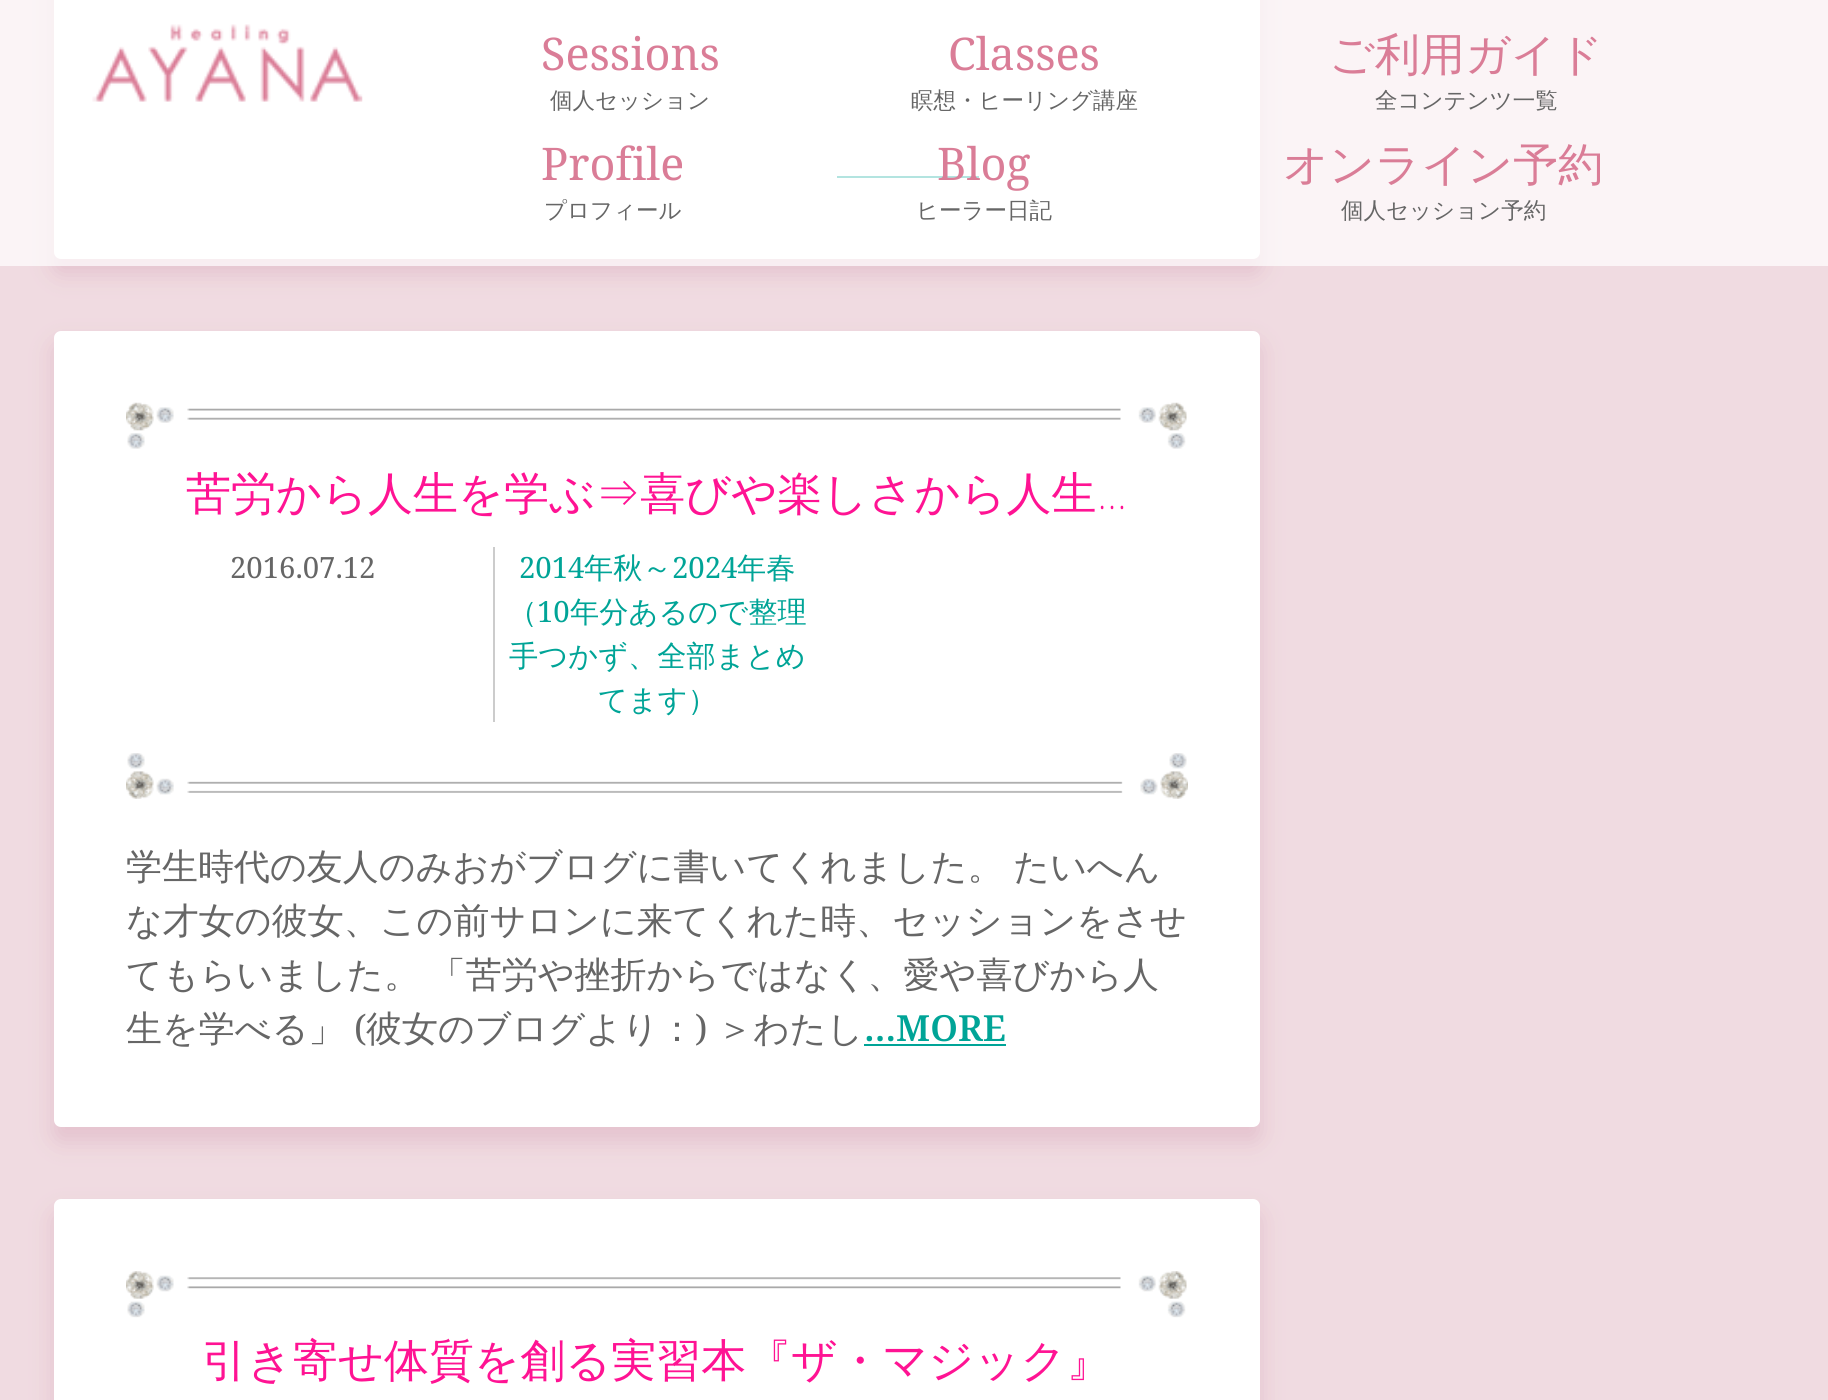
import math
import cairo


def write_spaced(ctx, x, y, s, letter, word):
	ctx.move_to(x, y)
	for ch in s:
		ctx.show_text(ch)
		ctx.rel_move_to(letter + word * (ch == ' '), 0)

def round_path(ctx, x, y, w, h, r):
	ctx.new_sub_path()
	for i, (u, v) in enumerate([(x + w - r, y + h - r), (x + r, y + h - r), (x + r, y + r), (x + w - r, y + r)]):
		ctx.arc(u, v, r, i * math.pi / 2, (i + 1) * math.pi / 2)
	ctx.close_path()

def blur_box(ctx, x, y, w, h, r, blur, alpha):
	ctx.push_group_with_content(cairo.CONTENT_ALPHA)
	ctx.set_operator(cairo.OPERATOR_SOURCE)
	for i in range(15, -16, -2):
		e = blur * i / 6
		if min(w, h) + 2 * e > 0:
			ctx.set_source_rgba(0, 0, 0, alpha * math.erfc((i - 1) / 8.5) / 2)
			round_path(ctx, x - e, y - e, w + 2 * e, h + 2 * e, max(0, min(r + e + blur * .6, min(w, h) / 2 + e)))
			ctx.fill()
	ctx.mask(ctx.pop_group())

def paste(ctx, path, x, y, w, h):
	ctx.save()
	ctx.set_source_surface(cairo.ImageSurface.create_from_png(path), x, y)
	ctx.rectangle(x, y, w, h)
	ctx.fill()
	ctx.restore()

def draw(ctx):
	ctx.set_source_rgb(0.941, 0.859, 0.882)
	ctx.paint()
	ctx.set_source_rgb(0.71, 0.388, 0.529)
	blur_box(ctx, 52, -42, 1210, 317, 9, 11, 0.2)
	ctx.set_source_rgb(1, 1, 1)
	round_path(ctx, 54, -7, 1206, 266, 7)
	ctx.fill()
	ctx.set_source_rgb(0, 0.643, 0.592)
	ctx.rectangle(837, 176, 142, 2)
	ctx.fill()
	ctx.set_source_rgba(1, 1, 1, 0.7)
	ctx.rectangle(0, 0, 1828, 266)
	ctx.fill()
	paste(ctx, 'media/1.png', 92, 24, 271, 78)
	ctx.select_font_face('Noto Serif')
	ctx.set_font_size(45)
	ctx.set_source_rgb(0.855, 0.49, 0.592)
	ctx.move_to(541, 70)
	ctx.show_text('Sessions')
	ctx.select_font_face('WenQuanYi Zen Hei Medium')
	ctx.set_font_size(22.5)
	ctx.set_source_rgb(0.4, 0.4, 0.4)
	ctx.move_to(550, 108)
	ctx.show_text('個人セッション')
	ctx.select_font_face('Noto Serif')
	ctx.set_font_size(45)
	ctx.set_source_rgb(0.855, 0.49, 0.592)
	ctx.move_to(948, 70)
	ctx.show_text('Classes')
	ctx.select_font_face('WenQuanYi Zen Hei Medium')
	ctx.set_font_size(22.5)
	ctx.set_source_rgb(0.4, 0.4, 0.4)
	ctx.move_to(911, 108)
	ctx.show_text('瞑想・ヒーリング講座')
	ctx.set_font_size(45)
	ctx.set_source_rgb(0.855, 0.49, 0.592)
	ctx.move_to(1329, 70)
	ctx.show_text('ご利用ガイド')
	ctx.set_font_size(22.5)
	ctx.set_source_rgb(0.4, 0.4, 0.4)
	ctx.move_to(1375, 108)
	ctx.show_text('全コンテンツ一覧')
	ctx.select_font_face('Noto Serif')
	ctx.set_font_size(45)
	ctx.set_source_rgb(0.855, 0.49, 0.592)
	ctx.move_to(541, 180)
	ctx.show_text('Profile')
	ctx.select_font_face('WenQuanYi Zen Hei Medium')
	ctx.set_font_size(22.5)
	ctx.set_source_rgb(0.4, 0.4, 0.4)
	ctx.move_to(544, 218)
	ctx.show_text('プロフィール')
	ctx.select_font_face('Noto Serif')
	ctx.set_font_size(45)
	ctx.set_source_rgb(0.855, 0.49, 0.592)
	ctx.move_to(937, 180)
	ctx.show_text('Blog')
	ctx.select_font_face('WenQuanYi Zen Hei Medium')
	ctx.set_font_size(22.5)
	ctx.set_source_rgb(0.4, 0.4, 0.4)
	ctx.move_to(916, 218)
	ctx.show_text('ヒーラー日記')
	ctx.set_font_size(45)
	ctx.set_source_rgb(0.855, 0.49, 0.592)
	ctx.move_to(1283, 180)
	ctx.show_text('オンライン予約')
	ctx.set_font_size(22.5)
	ctx.set_source_rgb(0.4, 0.4, 0.4)
	ctx.move_to(1341, 218)
	ctx.show_text('個人セッション予約')
	ctx.set_source_rgb(0.71, 0.388, 0.529)
	blur_box(ctx, 52, 342, 1210, 801, 9, 11, 0.2)
	ctx.set_source_rgb(1, 1, 1)
	round_path(ctx, 54, 331, 1206, 796, 7)
	ctx.fill()
	paste(ctx, 'media/2.png', 126, 402, 1061, 47)
	ctx.set_font_size(45)
	ctx.set_source_rgb(1, 0.078, 0.576)
	ctx.move_to(186, 509)
	ctx.show_text('苦労から人生を学ぶ⇒喜びや楽しさから人生')
	ctx.select_font_face('Noto Serif Thin')
	ctx.move_to(1097, 509)
	ctx.show_text('…')
	ctx.select_font_face('Noto Serif')
	ctx.set_font_size(29.25)
	ctx.set_source_rgb(0.4, 0.4, 0.4)
	ctx.move_to(230, 578)
	ctx.show_text('2016.07.12')
	ctx.set_source_rgb(0.8, 0.8, 0.8)
	ctx.rectangle(493, 547, 2, 175)
	ctx.fill()
	ctx.set_source_rgb(0, 0.643, 0.592)
	ctx.move_to(519, 578)
	ctx.show_text('2014')
	ctx.select_font_face('WenQuanYi Zen Hei Medium')
	ctx.move_to(584, 578)
	ctx.show_text('年秋～')
	ctx.select_font_face('Noto Serif')
	ctx.move_to(672, 578)
	ctx.show_text('2024')
	ctx.select_font_face('WenQuanYi Zen Hei Medium')
	ctx.move_to(737, 578)
	ctx.show_text('年春')
	ctx.move_to(508, 622)
	ctx.show_text('（')
	ctx.select_font_face('Noto Serif')
	ctx.move_to(537, 622)
	ctx.show_text('10')
	ctx.select_font_face('WenQuanYi Zen Hei Medium')
	for x, y, s in [
		(570, 622, '年分あるので整理'),
		(509, 666, '手つかず、全部まとめ'),
		(598, 710, 'てます）'),
	]:
		ctx.move_to(x, y)
		ctx.show_text(s)
	paste(ctx, 'media/3.png', 126, 753, 1062, 46)
	ctx.set_font_size(36)
	ctx.set_source_rgb(0.4, 0.4, 0.4)
	write_spaced(ctx, 126, 879, '学生時代の友人のみおがブログに書いてくれました。 たいへん', 0, -1)
	ctx.move_to(126, 933)
	ctx.show_text('な才女の彼女、この前サロンに来てくれた時、セッションをさせ')
	write_spaced(ctx, 126, 987, 'てもらいました。 「苦労や挫折からではなく、愛や喜びから人', 0, -1)
	ctx.move_to(126, 1041)
	ctx.show_text('生を学べる」')
	ctx.select_font_face('Noto Serif')
	ctx.move_to(354, 1041)
	ctx.show_text('(')
	ctx.select_font_face('WenQuanYi Zen Hei Medium')
	ctx.move_to(366, 1041)
	ctx.show_text('彼女のブログより：')
	ctx.select_font_face('Noto Serif')
	ctx.move_to(695, 1041)
	ctx.show_text(')')
	ctx.select_font_face('WenQuanYi Zen Hei Medium')
	ctx.move_to(717, 1041)
	ctx.show_text('＞わたし')
	ctx.select_font_face('Noto Serif SemiBold')
	ctx.set_source_rgb(0, 0.643, 0.592)
	ctx.move_to(864, 1041)
	ctx.show_text('…MORE')
	ctx.rectangle(864, 1044, 142, 2)
	ctx.fill()
	ctx.set_source_rgb(0.71, 0.388, 0.529)
	blur_box(ctx, 52, 1211, 1210, 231, 9, 11, 0.2)
	ctx.set_source_rgb(1, 1, 1)
	round_path(ctx, 54, 1199, 1206, 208, 7)
	ctx.fill()
	paste(ctx, 'media/4.png', 126, 1271, 1061, 47)
	ctx.select_font_face('WenQuanYi Zen Hei Medium')
	ctx.set_font_size(45)
	ctx.set_source_rgb(1, 0.078, 0.576)
	ctx.move_to(202, 1376)
	ctx.show_text('引き寄せ体質を創る実習本『ザ・マジック』')


surface = cairo.ImageSurface(cairo.FORMAT_RGB24, 1828, 1400)
ctx = cairo.Context(surface)
options = cairo.FontOptions()
options.set_hint_metrics(cairo.HINT_METRICS_OFF)
options.set_hint_style(cairo.HINT_STYLE_NONE)
ctx.set_font_options(options)
ctx.set_miter_limit(4)
draw(ctx)
surface.write_to_png('image.png')
